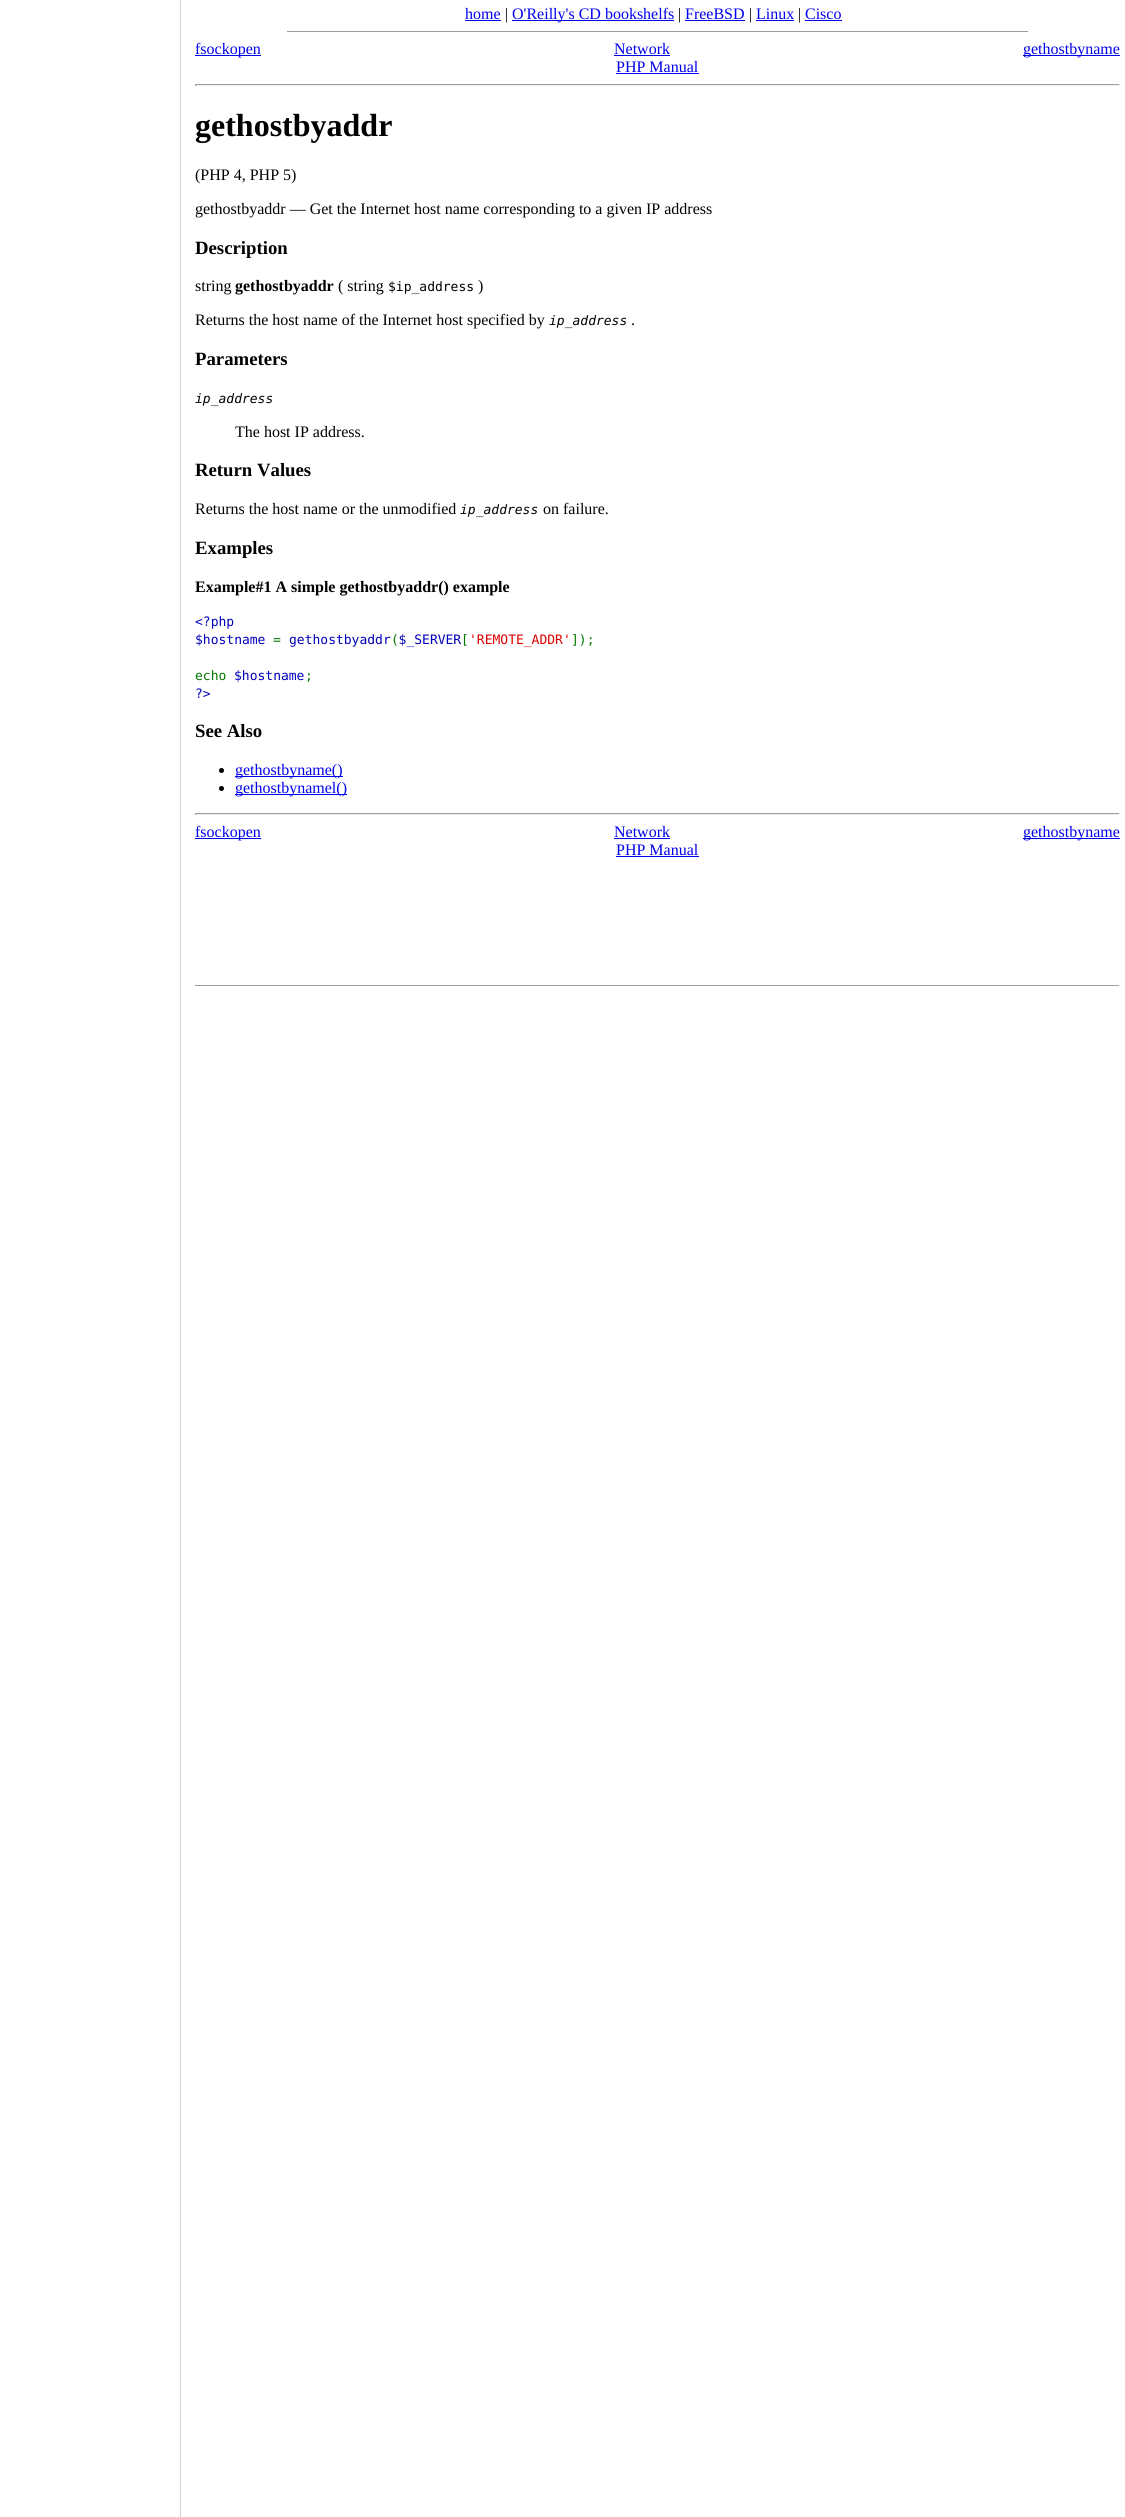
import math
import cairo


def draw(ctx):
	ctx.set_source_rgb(1, 1, 1)
	ctx.paint()
	ctx.set_source_rgb(0.827, 0.827, 0.827)
	ctx.rectangle(180, 0, 1, 2517)
	ctx.fill()
	ctx.select_font_face('Liberation Serif')
	ctx.set_font_size(16)
	ctx.set_source_rgb(0, 0, 0.933)
	ctx.move_to(465, 19)
	ctx.show_text('home')
	ctx.rectangle(465, 20, 36, 1)
	ctx.fill()
	ctx.set_source_rgb(0, 0, 0)
	ctx.move_to(505, 19)
	ctx.show_text('|')
	ctx.set_source_rgb(0, 0, 0.933)
	ctx.rectangle(512, 20, 162, 1)
	ctx.fill()
	ctx.move_to(512, 19)
	ctx.show_text('O\'Reilly\'s CD bookshelfs')
	ctx.set_source_rgb(0, 0, 0)
	ctx.move_to(678, 19)
	ctx.show_text('|')
	ctx.set_source_rgb(0, 0, 0.933)
	ctx.move_to(685, 19)
	ctx.show_text('FreeBSD')
	ctx.rectangle(685, 20, 60, 1)
	ctx.fill()
	ctx.set_source_rgb(0, 0, 0)
	ctx.move_to(749, 19)
	ctx.show_text('|')
	ctx.set_source_rgb(0, 0, 0.933)
	ctx.move_to(756, 19)
	ctx.show_text('Linux')
	ctx.rectangle(756, 20, 38, 1)
	ctx.fill()
	ctx.set_source_rgb(0, 0, 0)
	ctx.move_to(798, 19)
	ctx.show_text('|')
	ctx.set_source_rgb(0, 0, 0.933)
	ctx.move_to(805, 19)
	ctx.show_text('Cisco')
	ctx.rectangle(805, 20, 37, 1)
	ctx.fill()
	ctx.set_source_rgb(0.624, 0.624, 0.624)
	ctx.rectangle(287, 31, 742, 1)
	ctx.fill()
	ctx.set_source_rgb(0.933, 0.933, 0.933)
	ctx.rectangle(1028, 31, 1, 1)
	ctx.fill()
	ctx.set_source_rgb(0, 0, 0.933)
	ctx.rectangle(195, 55, 66, 1)
	ctx.fill()
	ctx.move_to(195, 54)
	ctx.show_text('fsockopen')
	ctx.move_to(614, 54)
	ctx.show_text('Network')
	ctx.rectangle(614, 55, 56, 1)
	ctx.fill()
	ctx.rectangle(1023, 55, 97, 1)
	ctx.fill()
	ctx.move_to(1023, 54)
	ctx.show_text('gethostbyname')
	ctx.move_to(616, 72)
	ctx.show_text('PHP Manual')
	ctx.rectangle(616, 73, 83, 1)
	ctx.fill()
	ctx.set_source_rgb(0.624, 0.624, 0.624)
	ctx.rectangle(195, 84, 925, 1)
	ctx.fill()
	ctx.set_source_rgb(0.933, 0.933, 0.933)
	ctx.rectangle(1119, 84, 1, 2)
	ctx.rectangle(195, 85, 925, 1)
	ctx.fill()
	ctx.set_source_rgb(0.624, 0.624, 0.624)
	ctx.rectangle(195, 84, 1, 2)
	ctx.fill()
	ctx.select_font_face('Liberation Serif', cairo.FONT_SLANT_NORMAL, cairo.FONT_WEIGHT_BOLD)
	ctx.set_font_size(32)
	ctx.set_source_rgb(0, 0, 0)
	ctx.move_to(195, 136)
	ctx.show_text('gethostbyaddr')
	ctx.select_font_face('Liberation Serif')
	ctx.set_font_size(16)
	ctx.move_to(195, 180)
	ctx.show_text('(PHP 4, PHP 5)')
	ctx.move_to(195, 214)
	ctx.show_text('gethostbyaddr — Get the Internet host name corresponding to a given IP address')
	ctx.select_font_face('Liberation Serif', cairo.FONT_SLANT_NORMAL, cairo.FONT_WEIGHT_BOLD)
	ctx.set_font_size(18.75)
	ctx.move_to(195, 254)
	ctx.show_text('Description')
	ctx.select_font_face('Liberation Serif')
	ctx.set_font_size(16)
	ctx.move_to(195, 291)
	ctx.show_text('string')
	ctx.select_font_face('Liberation Serif', cairo.FONT_SLANT_NORMAL, cairo.FONT_WEIGHT_BOLD)
	ctx.move_to(235, 291)
	ctx.show_text('gethostbyaddr')
	ctx.select_font_face('Liberation Serif')
	ctx.move_to(338, 291)
	ctx.show_text('( string')
	ctx.select_font_face('DejaVu Sans Mono')
	ctx.set_font_size(13)
	ctx.move_to(388, 291)
	ctx.show_text('$ip_address')
	ctx.select_font_face('Liberation Serif')
	ctx.set_font_size(16)
	ctx.move_to(478, 291)
	ctx.show_text(')')
	ctx.move_to(195, 325)
	ctx.show_text('Returns the host name of the Internet host specified by')
	ctx.select_font_face('DejaVu Sans Mono', cairo.FONT_SLANT_ITALIC)
	ctx.set_font_size(13)
	ctx.move_to(549, 325)
	ctx.show_text('ip_address')
	ctx.select_font_face('Liberation Serif')
	ctx.set_font_size(16)
	ctx.move_to(631, 325)
	ctx.show_text('.')
	ctx.select_font_face('Liberation Serif', cairo.FONT_SLANT_NORMAL, cairo.FONT_WEIGHT_BOLD)
	ctx.set_font_size(18.75)
	ctx.move_to(195, 365)
	ctx.show_text('Parameters')
	ctx.select_font_face('DejaVu Sans Mono', cairo.FONT_SLANT_ITALIC)
	ctx.set_font_size(13)
	ctx.move_to(195, 403)
	ctx.show_text('ip_address')
	ctx.select_font_face('Liberation Serif')
	ctx.set_font_size(16)
	ctx.move_to(235, 437)
	ctx.show_text('The host IP address.')
	ctx.select_font_face('Liberation Serif', cairo.FONT_SLANT_NORMAL, cairo.FONT_WEIGHT_BOLD)
	ctx.set_font_size(18.75)
	ctx.move_to(195, 476)
	ctx.show_text('Return Values')
	ctx.select_font_face('Liberation Serif')
	ctx.set_font_size(16)
	ctx.move_to(195, 514)
	ctx.show_text('Returns the host name or the unmodified')
	ctx.select_font_face('DejaVu Sans Mono', cairo.FONT_SLANT_ITALIC)
	ctx.set_font_size(13)
	ctx.move_to(460, 514)
	ctx.show_text('ip_address')
	ctx.select_font_face('Liberation Serif')
	ctx.set_font_size(16)
	ctx.move_to(543, 514)
	ctx.show_text('on failure.')
	ctx.select_font_face('Liberation Serif', cairo.FONT_SLANT_NORMAL, cairo.FONT_WEIGHT_BOLD)
	ctx.set_font_size(18.75)
	ctx.move_to(195, 554)
	ctx.show_text('Examples')
	ctx.set_font_size(16)
	ctx.move_to(195, 592)
	ctx.show_text('Example#1 A simple gethostbyaddr() example')
	ctx.select_font_face('DejaVu Sans Mono')
	ctx.set_font_size(13)
	ctx.set_source_rgb(0, 0, 0.733)
	for x, y, s in [
		(195, 626, '<?php'),
		(195, 644, '$hostname'),
		(289, 644, 'gethostbyaddr $_SERVER'),
	]:
		ctx.move_to(x, y)
		ctx.show_text(s)
	ctx.set_source_rgb(0, 0.467, 0)
	for x, y, s in [
		(273, 644, '='),
		(391, 644, '('),
		(461, 644, '['),
	]:
		ctx.move_to(x, y)
		ctx.show_text(s)
	ctx.set_source_rgb(0.867, 0, 0)
	ctx.move_to(469, 644)
	ctx.show_text('\'REMOTE_ADDR\'')
	ctx.set_source_rgb(0, 0.467, 0)
	ctx.move_to(571, 644)
	ctx.show_text(']);')
	ctx.move_to(195, 680)
	ctx.show_text('echo')
	ctx.set_source_rgb(0, 0, 0.733)
	ctx.move_to(234, 680)
	ctx.show_text('$hostname')
	ctx.set_source_rgb(0, 0.467, 0)
	ctx.move_to(305, 680)
	ctx.show_text(';')
	ctx.set_source_rgb(0, 0, 0.733)
	ctx.move_to(195, 698)
	ctx.show_text('?>')
	ctx.select_font_face('Liberation Serif', cairo.FONT_SLANT_NORMAL, cairo.FONT_WEIGHT_BOLD)
	ctx.set_font_size(18.75)
	ctx.set_source_rgb(0, 0, 0)
	ctx.move_to(195, 737)
	ctx.show_text('See Also')
	ctx.new_path()
	ctx.arc(221.5, 770.5, 2.5, 0, 2 * math.pi)
	ctx.fill()
	ctx.set_source_rgb(0, 0, 0.933)
	ctx.rectangle(235, 776, 108, 1)
	ctx.fill()
	ctx.select_font_face('Liberation Serif')
	ctx.set_font_size(16)
	ctx.move_to(235, 775)
	ctx.show_text('gethostbyname()')
	ctx.set_source_rgb(0, 0, 0)
	ctx.new_path()
	ctx.arc(221.5, 788.5, 2.5, 0, 2 * math.pi)
	ctx.fill()
	ctx.set_source_rgb(0, 0, 0.933)
	ctx.rectangle(235, 794, 112, 1)
	ctx.fill()
	ctx.move_to(235, 793)
	ctx.show_text('gethostbynamel()')
	ctx.set_source_rgb(0.624, 0.624, 0.624)
	ctx.rectangle(195, 813, 925, 1)
	ctx.fill()
	ctx.set_source_rgb(0.933, 0.933, 0.933)
	ctx.rectangle(1119, 813, 1, 2)
	ctx.rectangle(195, 814, 925, 1)
	ctx.fill()
	ctx.set_source_rgb(0.624, 0.624, 0.624)
	ctx.rectangle(195, 813, 1, 2)
	ctx.fill()
	ctx.set_source_rgb(0, 0, 0.933)
	ctx.rectangle(195, 838, 66, 1)
	ctx.fill()
	ctx.move_to(195, 837)
	ctx.show_text('fsockopen')
	ctx.move_to(614, 837)
	ctx.show_text('Network')
	ctx.rectangle(614, 838, 56, 1)
	ctx.fill()
	ctx.rectangle(1023, 838, 97, 1)
	ctx.fill()
	ctx.move_to(1023, 837)
	ctx.show_text('gethostbyname')
	ctx.move_to(616, 855)
	ctx.show_text('PHP Manual')
	ctx.rectangle(616, 856, 83, 1)
	ctx.fill()
	ctx.set_source_rgb(0.624, 0.624, 0.624)
	ctx.rectangle(195, 985, 925, 1)
	ctx.fill()
	ctx.set_source_rgb(0.933, 0.933, 0.933)
	ctx.rectangle(1119, 985, 1, 1)
	ctx.fill()


surface = cairo.ImageSurface(cairo.FORMAT_RGB24, 1125, 2517)
ctx = cairo.Context(surface)
options = cairo.FontOptions()
options.set_hint_metrics(cairo.HINT_METRICS_OFF)
options.set_hint_style(cairo.HINT_STYLE_NONE)
ctx.set_font_options(options)
ctx.set_miter_limit(4)
draw(ctx)
surface.write_to_png('image.png')
